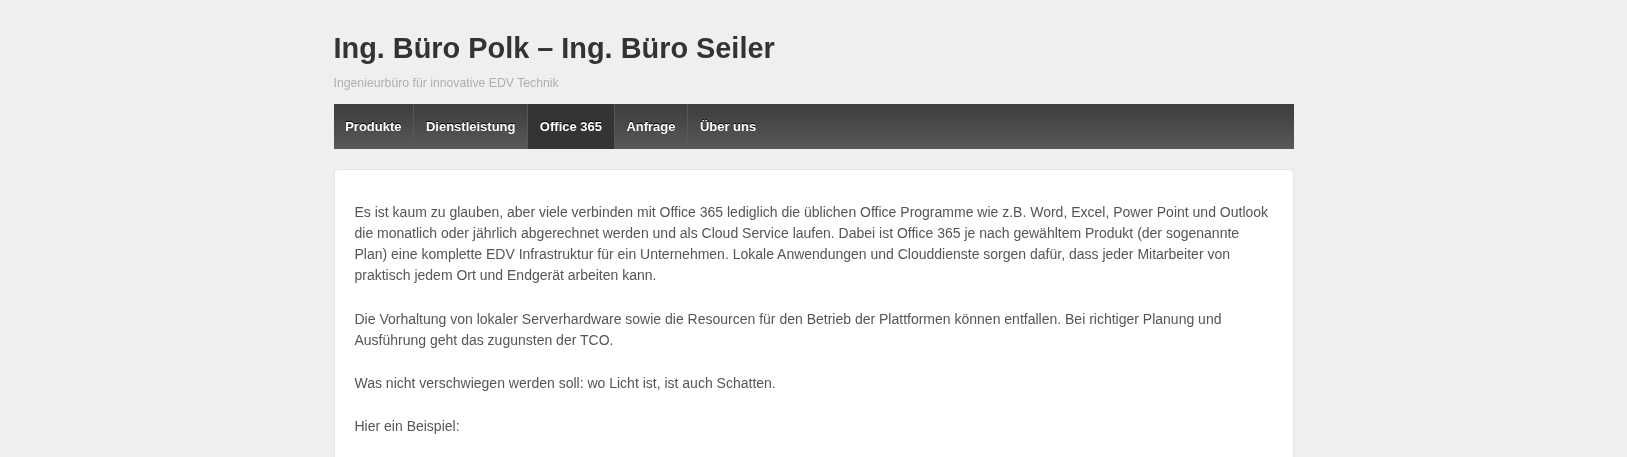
import math
import cairo


def paste(ctx, path, x, y, w, h):
	ctx.save()
	ctx.set_source_surface(cairo.ImageSurface.create_from_png(path), x, y)
	ctx.rectangle(x, y, w, h)
	ctx.fill()
	ctx.restore()

def draw(ctx):
	ctx.set_source_rgb(1, 1, 1)
	ctx.paint()
	paste(ctx, 'media/1.png', 0, 0, 1627, 457)


surface = cairo.ImageSurface(cairo.FORMAT_RGB24, 1627, 457)
ctx = cairo.Context(surface)
options = cairo.FontOptions()
options.set_hint_metrics(cairo.HINT_METRICS_OFF)
options.set_hint_style(cairo.HINT_STYLE_NONE)
ctx.set_font_options(options)
ctx.set_miter_limit(4)
draw(ctx)
surface.write_to_png('image.png')
